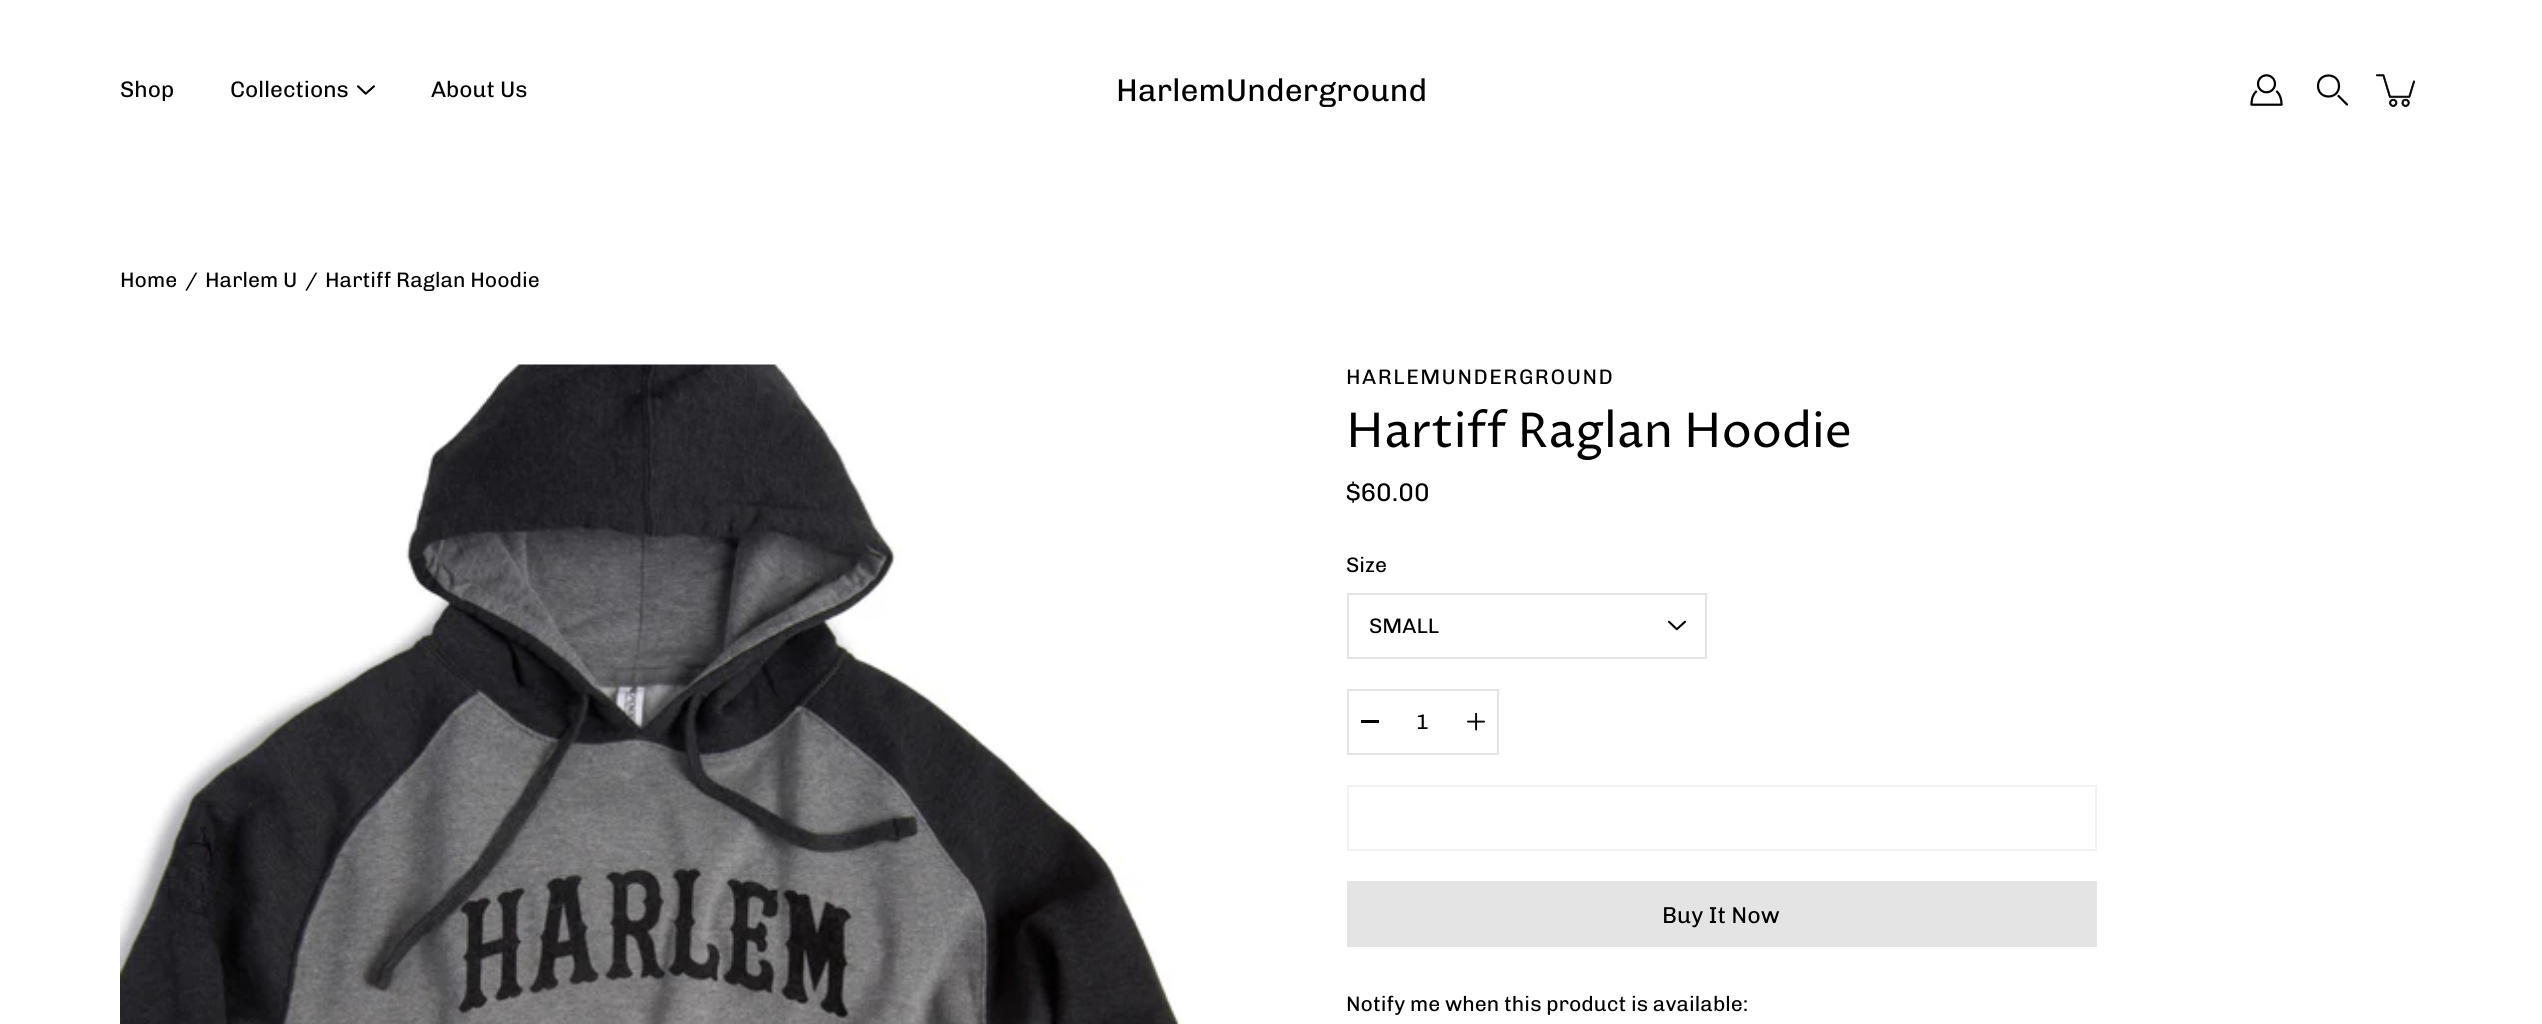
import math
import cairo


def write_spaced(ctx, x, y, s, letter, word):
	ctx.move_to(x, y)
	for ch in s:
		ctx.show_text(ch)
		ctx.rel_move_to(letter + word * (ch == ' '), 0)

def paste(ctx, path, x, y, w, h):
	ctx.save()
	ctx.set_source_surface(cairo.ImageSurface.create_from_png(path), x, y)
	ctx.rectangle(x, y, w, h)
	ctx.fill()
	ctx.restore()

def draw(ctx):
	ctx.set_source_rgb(1, 1, 1)
	ctx.paint()
	ctx.select_font_face('Chivo')
	ctx.set_font_size(22.5)
	ctx.set_source_rgb(0, 0, 0)
	ctx.move_to(120, 97)
	ctx.show_text('Shop')
	ctx.move_to(230, 97)
	ctx.show_text('Collections')
	paste(ctx, 'media/1.png', 357, 85, 18, 10)
	ctx.move_to(431, 97)
	ctx.show_text('About Us')
	paste(ctx, 'media/2.png', 2250, 74, 33, 32)
	ctx.new_path()
	ctx.move_to(2339, 86)
	ctx.curve_to(2339, 100, 2318, 100, 2318, 86)
	ctx.curve_to(2318, 72, 2339, 72, 2339, 86)
	ctx.close_path()
	ctx.set_line_width(2.2)
	ctx.stroke()
	ctx.new_path()
	ctx.move_to(2338.5, 96)
	ctx.line_to(2347, 104.5)
	ctx.set_line_cap(cairo.LINE_CAP_ROUND)
	ctx.stroke()
	paste(ctx, 'media/3.png', 2375, 74, 40, 33)
	ctx.set_font_size(31.5)
	ctx.move_to(1116, 101)
	ctx.show_text('HarlemUnderground')
	ctx.set_font_size(21)
	for x, y, s in [
		(120, 287, 'Home'),
		(185, 287, '/'),
		(205, 287, 'Harlem U'),
		(305, 287, '/'),
		(325, 287, 'Hartiff Raglan Hoodie'),
	]:
		ctx.move_to(x, y)
		ctx.show_text(s)
	paste(ctx, 'media/4.png', 120, 364, 1063, 660)
	write_spaced(ctx, 1346, 384, 'HARLEMUNDERGROUND', 1.5, 0)
	ctx.select_font_face('Proza Libre')
	ctx.set_font_size(48)
	ctx.move_to(1346, 447)
	ctx.show_text('Hartiff Raglan Hoodie')
	ctx.select_font_face('Chivo')
	ctx.set_font_size(25.5)
	ctx.move_to(1346, 501)
	ctx.show_text('$60.00')
	ctx.set_font_size(21)
	ctx.move_to(1346, 572)
	ctx.show_text('Size')
	ctx.rectangle(1348, 594, 358, 64)
	ctx.set_source_rgb(0.894, 0.894, 0.894)
	ctx.set_line_width(2)
	ctx.set_line_cap(cairo.LINE_CAP_BUTT)
	ctx.stroke()
	ctx.set_source_rgb(0, 0, 0)
	ctx.move_to(1369, 633)
	ctx.show_text('SMALL')
	paste(ctx, 'media/5.png', 1668, 620, 18, 11)
	ctx.rectangle(1348, 690, 150, 64)
	ctx.set_source_rgb(0.894, 0.894, 0.894)
	ctx.stroke()
	ctx.set_source_rgb(0, 0, 0)
	ctx.rectangle(1361, 720, 18, 3)
	ctx.fill()
	ctx.move_to(1416, 729)
	ctx.show_text('1')
	paste(ctx, 'media/6.png', 1467, 713, 18, 18)
	ctx.rectangle(1348, 786, 748, 64)
	ctx.set_source_rgb(0.949, 0.949, 0.949)
	ctx.stroke()
	ctx.set_source_rgb(0.894, 0.894, 0.894)
	ctx.rectangle(1347, 881, 750, 66)
	ctx.fill()
	ctx.set_font_size(23)
	ctx.set_source_rgb(0, 0, 0)
	ctx.move_to(1662, 923)
	ctx.show_text('Buy It Now')
	ctx.set_font_size(21)
	ctx.move_to(1346, 1011)
	ctx.show_text('Notify me when this product is available:')


surface = cairo.ImageSurface(cairo.FORMAT_RGB24, 2542, 1024)
ctx = cairo.Context(surface)
options = cairo.FontOptions()
options.set_hint_metrics(cairo.HINT_METRICS_OFF)
options.set_hint_style(cairo.HINT_STYLE_NONE)
ctx.set_font_options(options)
ctx.set_miter_limit(4)
draw(ctx)
surface.write_to_png('image.png')
